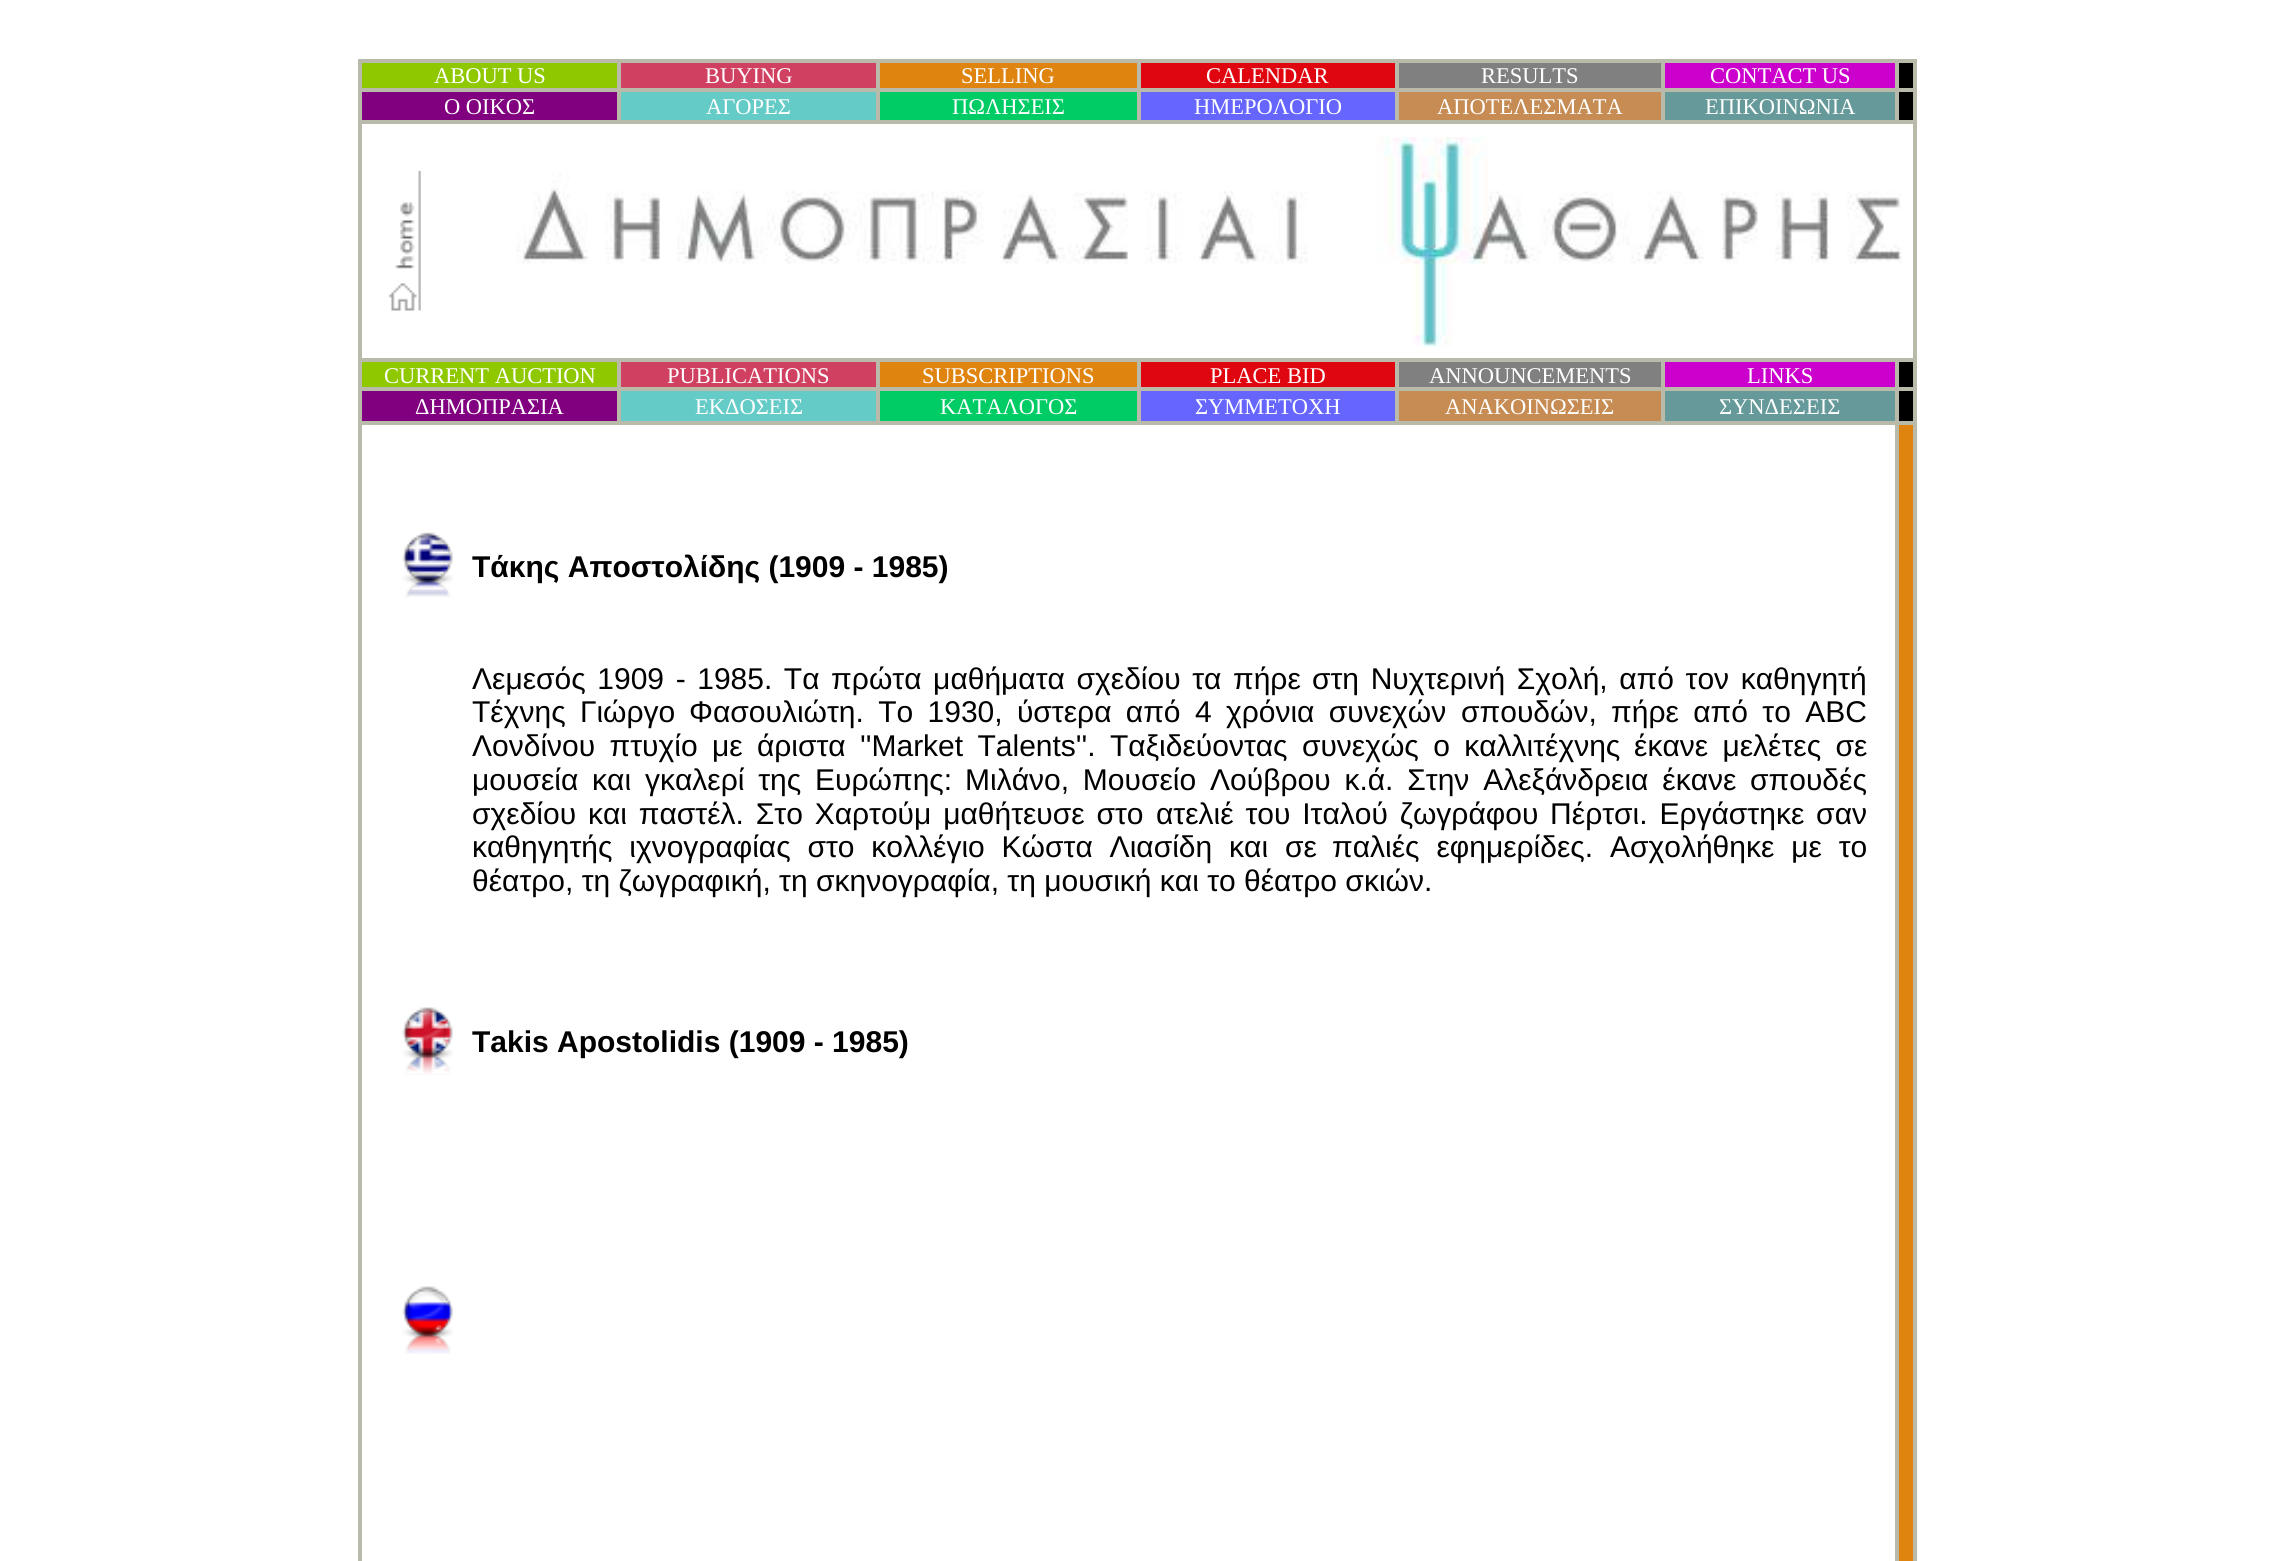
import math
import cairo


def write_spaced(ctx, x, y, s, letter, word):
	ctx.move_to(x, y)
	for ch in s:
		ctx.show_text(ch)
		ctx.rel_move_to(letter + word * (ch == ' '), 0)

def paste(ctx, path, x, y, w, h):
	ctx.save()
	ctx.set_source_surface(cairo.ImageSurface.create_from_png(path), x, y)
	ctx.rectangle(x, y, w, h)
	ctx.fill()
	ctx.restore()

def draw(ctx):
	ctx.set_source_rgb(1, 1, 1)
	ctx.paint()
	ctx.rectangle(359, 60, 1557, 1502)
	ctx.set_source_rgb(0.725, 0.729, 0.663)
	ctx.stroke()
	ctx.set_source_rgb(0.565, 0.784, 0)
	ctx.rectangle(361, 62, 257, 27)
	ctx.fill_preserve()
	ctx.set_source_rgb(0.725, 0.729, 0.663)
	ctx.stroke()
	ctx.select_font_face('Liberation Serif')
	ctx.set_font_size(22.5)
	ctx.set_source_rgb(1, 1, 1)
	ctx.move_to(434, 83)
	ctx.show_text('ABOUT US')
	ctx.set_source_rgb(0.816, 0.251, 0.376)
	ctx.rectangle(620, 62, 257, 27)
	ctx.fill_preserve()
	ctx.set_source_rgb(0.725, 0.729, 0.663)
	ctx.stroke()
	ctx.set_source_rgb(1, 1, 1)
	ctx.move_to(705, 83)
	ctx.show_text('BUYING')
	ctx.set_source_rgb(0.878, 0.518, 0.063)
	ctx.rectangle(879, 62, 259, 27)
	ctx.fill_preserve()
	ctx.set_source_rgb(0.725, 0.729, 0.663)
	ctx.stroke()
	ctx.set_source_rgb(1, 1, 1)
	ctx.move_to(961, 83)
	ctx.show_text('SELLING')
	ctx.set_source_rgb(0.878, 0.027, 0.063)
	ctx.rectangle(1140, 62, 256, 27)
	ctx.fill_preserve()
	ctx.set_source_rgb(0.725, 0.729, 0.663)
	ctx.stroke()
	ctx.set_source_rgb(1, 1, 1)
	ctx.move_to(1206, 83)
	ctx.show_text('CALENDAR')
	ctx.set_source_rgb(0.502, 0.502, 0.502)
	ctx.rectangle(1398, 62, 264, 27)
	ctx.fill_preserve()
	ctx.set_source_rgb(0.725, 0.729, 0.663)
	ctx.stroke()
	ctx.set_source_rgb(1, 1, 1)
	ctx.move_to(1481, 83)
	ctx.show_text('RESULTS')
	ctx.set_source_rgb(0.8, 0, 0.8)
	ctx.rectangle(1664, 62, 232, 27)
	ctx.fill_preserve()
	ctx.set_source_rgb(0.725, 0.729, 0.663)
	ctx.stroke()
	ctx.set_source_rgb(1, 1, 1)
	ctx.move_to(1710, 83)
	ctx.show_text('CONTACT US')
	ctx.set_source_rgb(0, 0, 0)
	ctx.rectangle(1898, 62, 16, 27)
	ctx.fill_preserve()
	ctx.set_source_rgb(0.725, 0.729, 0.663)
	ctx.stroke()
	ctx.set_source_rgb(0.502, 0, 0.502)
	ctx.rectangle(361, 91, 257, 30)
	ctx.fill_preserve()
	ctx.set_source_rgb(0.725, 0.729, 0.663)
	ctx.stroke()
	ctx.set_source_rgb(1, 1, 1)
	ctx.move_to(444, 114)
	ctx.show_text('Ο ΟΙΚΟΣ')
	ctx.set_source_rgb(0.396, 0.796, 0.78)
	ctx.rectangle(620, 91, 257, 30)
	ctx.fill_preserve()
	ctx.set_source_rgb(0.725, 0.729, 0.663)
	ctx.stroke()
	ctx.set_source_rgb(1, 1, 1)
	ctx.move_to(706, 114)
	ctx.show_text('ΑΓΟΡΕΣ')
	ctx.set_source_rgb(0, 0.8, 0.4)
	ctx.rectangle(879, 91, 259, 30)
	ctx.fill_preserve()
	ctx.set_source_rgb(0.725, 0.729, 0.663)
	ctx.stroke()
	ctx.set_source_rgb(1, 1, 1)
	ctx.move_to(952, 114)
	ctx.show_text('ΠΩΛΗΣΕΙΣ')
	ctx.set_source_rgb(0.4, 0.4, 1)
	ctx.rectangle(1140, 91, 256, 30)
	ctx.fill_preserve()
	ctx.set_source_rgb(0.725, 0.729, 0.663)
	ctx.stroke()
	ctx.set_source_rgb(1, 1, 1)
	ctx.move_to(1194, 114)
	ctx.show_text('ΗΜΕΡΟΛΟΓΙΟ')
	ctx.set_source_rgb(0.776, 0.549, 0.325)
	ctx.rectangle(1398, 91, 264, 30)
	ctx.fill_preserve()
	ctx.set_source_rgb(0.725, 0.729, 0.663)
	ctx.stroke()
	ctx.set_source_rgb(1, 1, 1)
	ctx.move_to(1437, 114)
	ctx.show_text('ΑΠΟΤΕΛΕΣΜΑΤΑ')
	ctx.set_source_rgb(0.4, 0.6, 0.6)
	ctx.rectangle(1664, 91, 232, 30)
	ctx.fill_preserve()
	ctx.set_source_rgb(0.725, 0.729, 0.663)
	ctx.stroke()
	ctx.set_source_rgb(1, 1, 1)
	ctx.move_to(1705, 114)
	ctx.show_text('ΕΠΙΚΟΙΝΩΝΙΑ')
	ctx.set_source_rgb(0, 0, 0)
	ctx.rectangle(1898, 91, 16, 30)
	ctx.fill_preserve()
	ctx.set_source_rgb(0.725, 0.729, 0.663)
	ctx.stroke()
	ctx.rectangle(361, 123, 1553, 236)
	ctx.stroke()
	paste(ctx, 'media/1.png', 388, 171, 33, 140)
	paste(ctx, 'media/2.png', 516, 137, 1386, 210)
	ctx.set_source_rgb(0.565, 0.784, 0)
	ctx.rectangle(361, 361, 257, 27)
	ctx.fill_preserve()
	ctx.set_source_rgb(0.725, 0.729, 0.663)
	ctx.stroke()
	ctx.set_source_rgb(1, 1, 1)
	ctx.move_to(384, 383)
	ctx.show_text('CURRENT AUCTION')
	ctx.set_source_rgb(0.816, 0.251, 0.376)
	ctx.rectangle(620, 361, 257, 27)
	ctx.fill_preserve()
	ctx.set_source_rgb(0.725, 0.729, 0.663)
	ctx.stroke()
	ctx.set_source_rgb(1, 1, 1)
	ctx.move_to(667, 383)
	ctx.show_text('PUBLICATIONS')
	ctx.set_source_rgb(0.878, 0.518, 0.063)
	ctx.rectangle(879, 361, 259, 27)
	ctx.fill_preserve()
	ctx.set_source_rgb(0.725, 0.729, 0.663)
	ctx.stroke()
	ctx.set_source_rgb(1, 1, 1)
	ctx.move_to(922, 383)
	ctx.show_text('SUBSCRIPTIONS')
	ctx.set_source_rgb(0.878, 0.027, 0.063)
	ctx.rectangle(1140, 361, 256, 27)
	ctx.fill_preserve()
	ctx.set_source_rgb(0.725, 0.729, 0.663)
	ctx.stroke()
	ctx.set_source_rgb(1, 1, 1)
	ctx.move_to(1210, 383)
	ctx.show_text('PLACE BID')
	ctx.set_source_rgb(0.502, 0.502, 0.502)
	ctx.rectangle(1398, 361, 264, 27)
	ctx.fill_preserve()
	ctx.set_source_rgb(0.725, 0.729, 0.663)
	ctx.stroke()
	ctx.set_source_rgb(1, 1, 1)
	ctx.move_to(1429, 383)
	ctx.show_text('ANNOUNCEMENTS')
	ctx.set_source_rgb(0.8, 0, 0.8)
	ctx.rectangle(1664, 361, 232, 27)
	ctx.fill_preserve()
	ctx.set_source_rgb(0.725, 0.729, 0.663)
	ctx.stroke()
	ctx.set_source_rgb(1, 1, 1)
	ctx.move_to(1747, 383)
	ctx.show_text('LINKS')
	ctx.set_source_rgb(0, 0, 0)
	ctx.rectangle(1898, 361, 16, 27)
	ctx.fill_preserve()
	ctx.set_source_rgb(0.725, 0.729, 0.663)
	ctx.stroke()
	ctx.set_source_rgb(0.502, 0, 0.502)
	ctx.rectangle(361, 390, 257, 32)
	ctx.fill_preserve()
	ctx.set_source_rgb(0.725, 0.729, 0.663)
	ctx.stroke()
	ctx.set_source_rgb(1, 1, 1)
	ctx.move_to(415, 414)
	ctx.show_text('ΔΗΜΟΠΡΑΣΙΑ')
	ctx.set_source_rgb(0.396, 0.796, 0.78)
	ctx.rectangle(620, 390, 257, 32)
	ctx.fill_preserve()
	ctx.set_source_rgb(0.725, 0.729, 0.663)
	ctx.stroke()
	ctx.set_source_rgb(1, 1, 1)
	ctx.move_to(695, 414)
	ctx.show_text('ΕΚΔΟΣΕΙΣ')
	ctx.set_source_rgb(0, 0.8, 0.4)
	ctx.rectangle(879, 390, 259, 32)
	ctx.fill_preserve()
	ctx.set_source_rgb(0.725, 0.729, 0.663)
	ctx.stroke()
	ctx.set_source_rgb(1, 1, 1)
	ctx.move_to(940, 414)
	ctx.show_text('ΚΑΤΑΛΟΓΟΣ')
	ctx.set_source_rgb(0.4, 0.4, 1)
	ctx.rectangle(1140, 390, 256, 32)
	ctx.fill_preserve()
	ctx.set_source_rgb(0.725, 0.729, 0.663)
	ctx.stroke()
	ctx.set_source_rgb(1, 1, 1)
	ctx.move_to(1195, 414)
	ctx.show_text('ΣΥΜΜΕΤΟΧΗ')
	ctx.set_source_rgb(0.776, 0.549, 0.325)
	ctx.rectangle(1398, 390, 264, 32)
	ctx.fill_preserve()
	ctx.set_source_rgb(0.725, 0.729, 0.663)
	ctx.stroke()
	ctx.set_source_rgb(1, 1, 1)
	ctx.move_to(1445, 414)
	ctx.show_text('ΑΝΑΚΟΙΝΩΣΕΙΣ')
	ctx.set_source_rgb(0.4, 0.6, 0.6)
	ctx.rectangle(1664, 390, 232, 32)
	ctx.fill_preserve()
	ctx.set_source_rgb(0.725, 0.729, 0.663)
	ctx.stroke()
	ctx.set_source_rgb(1, 1, 1)
	ctx.move_to(1719, 414)
	ctx.show_text('ΣΥΝΔΕΣΕΙΣ')
	ctx.set_source_rgb(0, 0, 0)
	ctx.rectangle(1898, 390, 16, 32)
	ctx.fill_preserve()
	ctx.set_source_rgb(0.725, 0.729, 0.663)
	ctx.stroke()
	ctx.rectangle(361, 424, 1535, 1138)
	ctx.stroke()
	paste(ctx, 'media/3.png', 402, 532, 51, 67)
	ctx.select_font_face('Liberation Sans', cairo.FONT_SLANT_NORMAL, cairo.FONT_WEIGHT_BOLD)
	ctx.set_font_size(30)
	ctx.set_source_rgb(0, 0, 0)
	ctx.move_to(472, 577)
	ctx.show_text('Τάκης Αποστολίδης (1909 - 1985)')
	ctx.select_font_face('Liberation Sans')
	write_spaced(ctx, 472, 689, 'Λεμεσός 1909 - 1985. Τα πρώτα μαθήματα σχεδίου τα πήρε', 0, 3.25)
	write_spaced(ctx, 1312, 689, 'στη Νυχτερινή Σχολή, από τον καθηγητή', 0, 3.25)
	for x, y, s in [
		(472, 722, 'Τέχνης Γιώργο'),
		(689, 722, 'Φασουλιώτη. Το 1930, ύστερα από 4 χρόνια συνεχών'),
		(1461, 722, 'σπουδών, πήρε από το ABC'),
		(472, 756, 'Λονδίνου πτυχίο με άριστα'),
		(860, 756, '\'\'Market Talents\'\'. Ταξιδεύοντας συνεχώς ο καλλιτέχνης'),
		(1634, 756, 'έκανε μελέτες σε'),
	]:
		write_spaced(ctx, x, y, s, 0, 6)
	write_spaced(ctx, 472, 790, 'μουσεία και γκαλερί της Ευρώπης:', 0, 5.5)
	write_spaced(ctx, 965, 790, 'Μιλάνο, Μουσείο Λούβρου κ.ά. Στην Αλεξάνδρεια έκανε', 0, 5.5)
	ctx.move_to(1750, 790)
	ctx.show_text('σπουδές')
	write_spaced(ctx, 472, 824, 'σχεδίου και παστέλ. Στο Χαρτούμ μαθήτευσε στο', 0, 3.5)
	write_spaced(ctx, 1156, 824, 'ατελιέ του Ιταλού ζωγράφου Πέρτσι. Εργάστηκε σαν', 0, 3.5)
	write_spaced(ctx, 472, 857, 'καθηγητής ιχνογραφίας στο κολλέγιο Κώστα Λιασίδη και σε', 0, 8.5)
	write_spaced(ctx, 1332, 857, 'παλιές εφημερίδες. Ασχολήθηκε με το', 0, 8.5)
	ctx.move_to(472, 891)
	ctx.show_text('θέατρο, τη ζωγραφική, τη σκηνογραφία, τη μουσική και το θέατρο σκιών.')
	paste(ctx, 'media/4.png', 402, 1007, 51, 68)
	ctx.select_font_face('Liberation Sans', cairo.FONT_SLANT_NORMAL, cairo.FONT_WEIGHT_BOLD)
	ctx.move_to(472, 1052)
	ctx.show_text('Takis Apostolidis (1909 - 1985)')
	paste(ctx, 'media/5.png', 402, 1286, 51, 68)
	ctx.set_source_rgb(0.878, 0.518, 0.063)
	ctx.rectangle(1898, 424, 16, 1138)
	ctx.fill_preserve()
	ctx.set_source_rgb(0.725, 0.729, 0.663)
	ctx.stroke()


surface = cairo.ImageSurface(cairo.FORMAT_RGB24, 2273, 1561)
ctx = cairo.Context(surface)
options = cairo.FontOptions()
options.set_hint_metrics(cairo.HINT_METRICS_OFF)
options.set_hint_style(cairo.HINT_STYLE_NONE)
ctx.set_font_options(options)
ctx.set_miter_limit(4)
draw(ctx)
surface.write_to_png('image.png')
